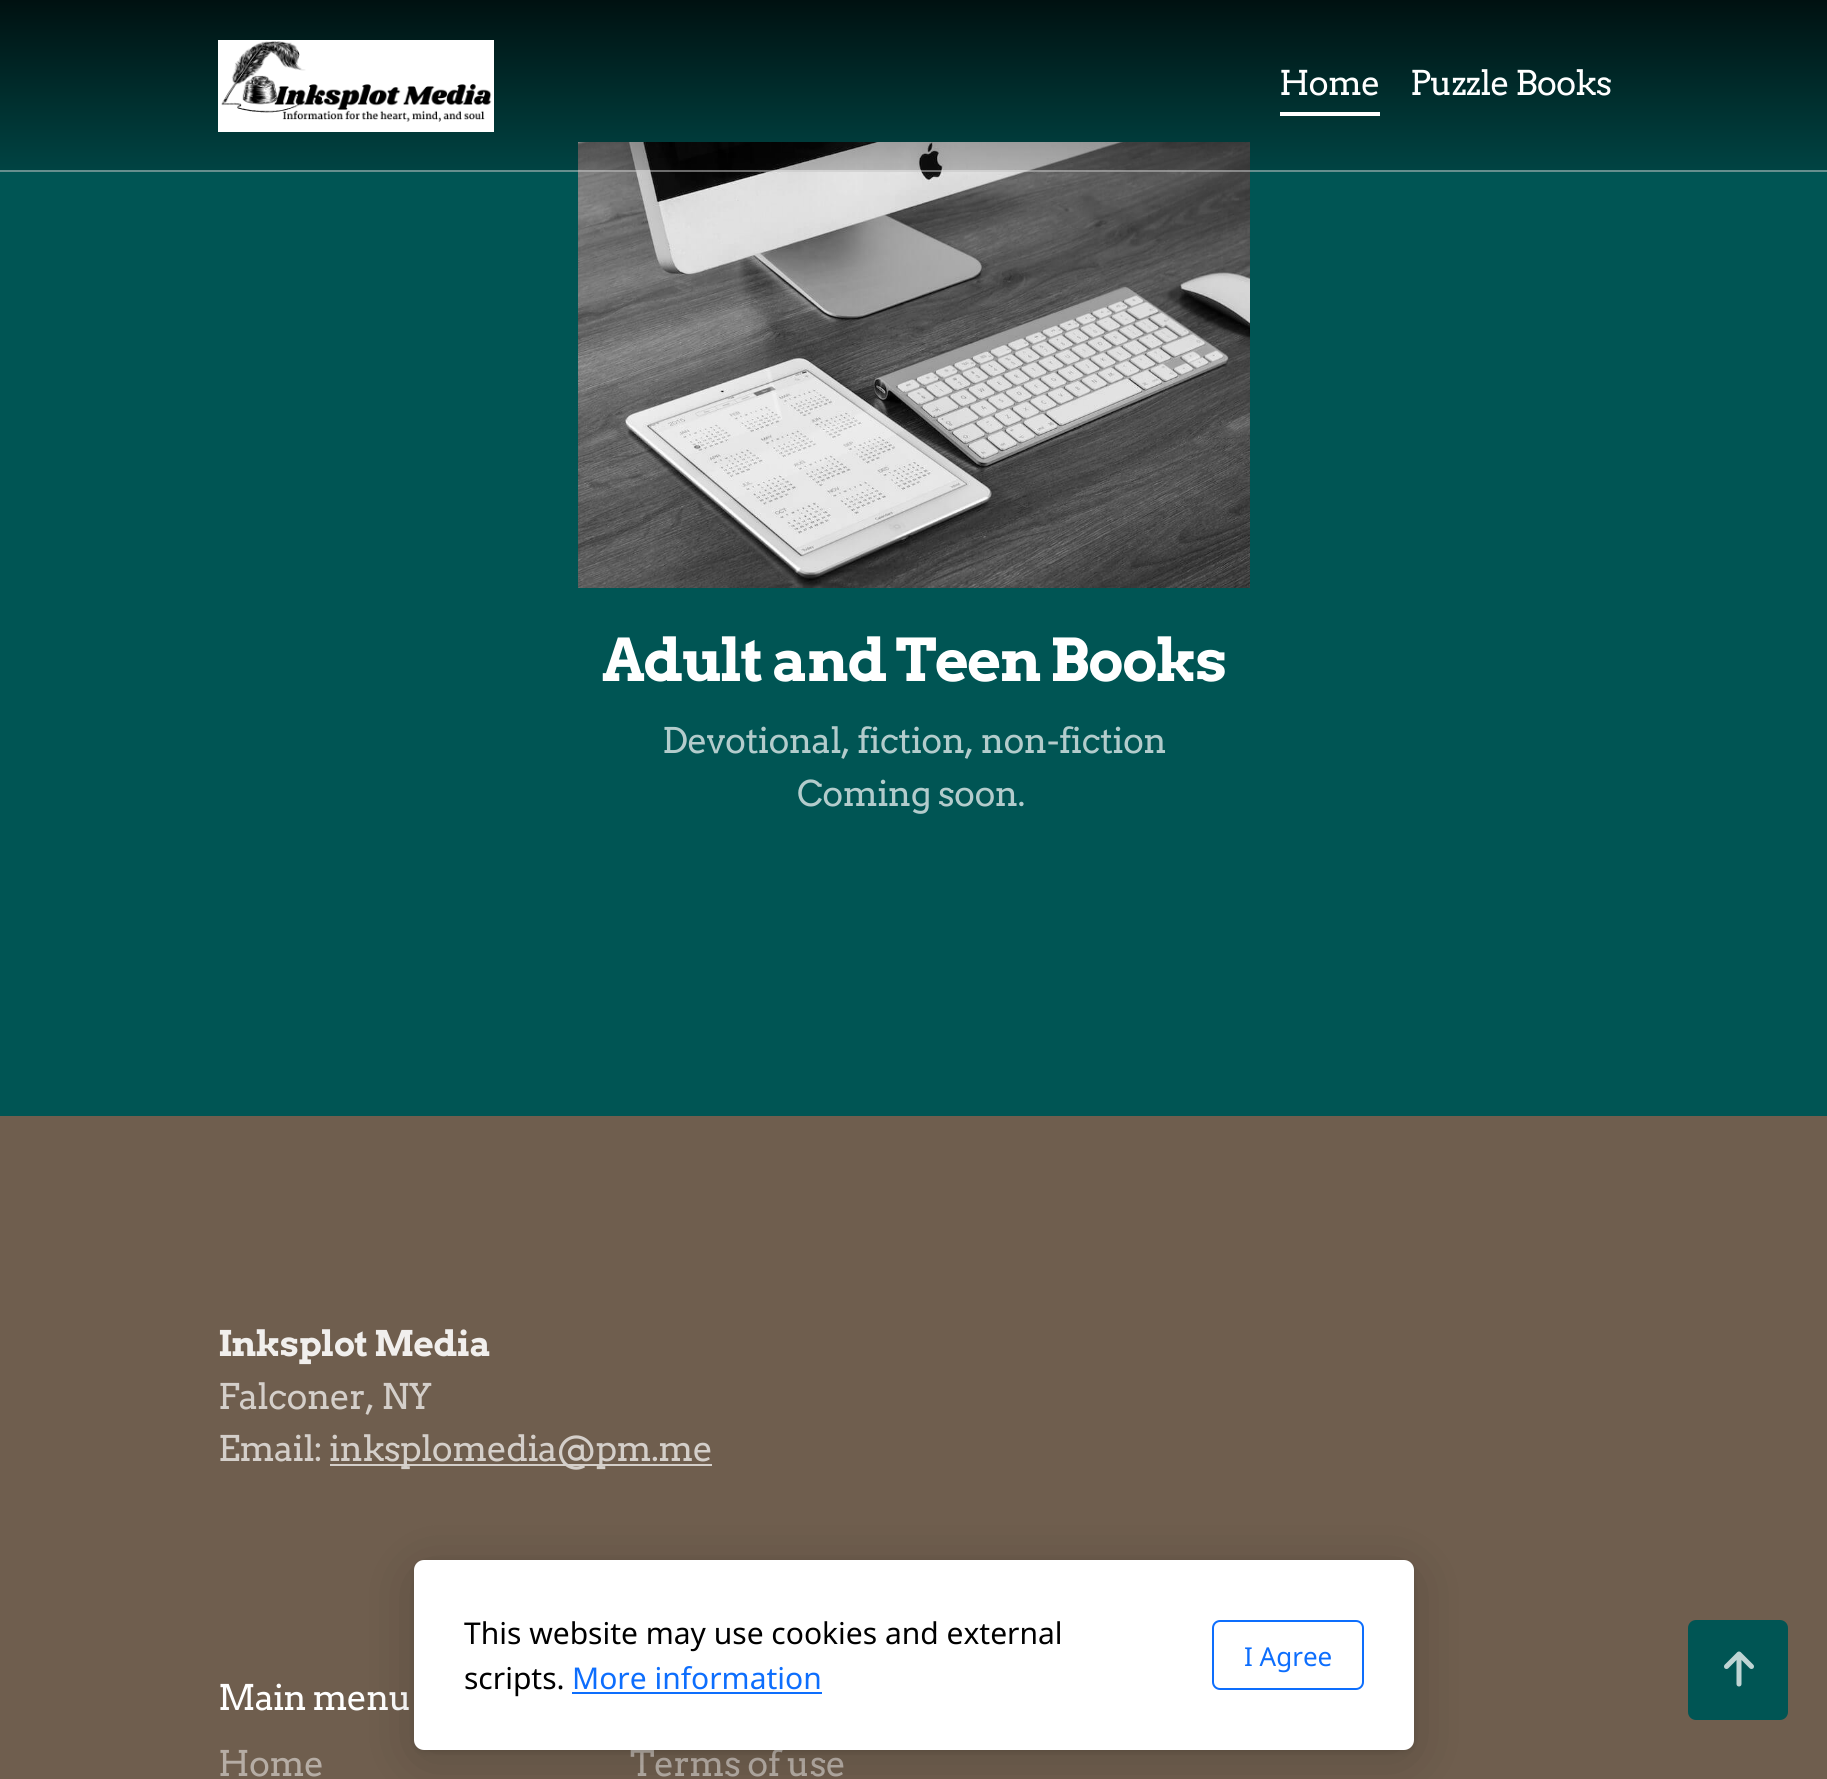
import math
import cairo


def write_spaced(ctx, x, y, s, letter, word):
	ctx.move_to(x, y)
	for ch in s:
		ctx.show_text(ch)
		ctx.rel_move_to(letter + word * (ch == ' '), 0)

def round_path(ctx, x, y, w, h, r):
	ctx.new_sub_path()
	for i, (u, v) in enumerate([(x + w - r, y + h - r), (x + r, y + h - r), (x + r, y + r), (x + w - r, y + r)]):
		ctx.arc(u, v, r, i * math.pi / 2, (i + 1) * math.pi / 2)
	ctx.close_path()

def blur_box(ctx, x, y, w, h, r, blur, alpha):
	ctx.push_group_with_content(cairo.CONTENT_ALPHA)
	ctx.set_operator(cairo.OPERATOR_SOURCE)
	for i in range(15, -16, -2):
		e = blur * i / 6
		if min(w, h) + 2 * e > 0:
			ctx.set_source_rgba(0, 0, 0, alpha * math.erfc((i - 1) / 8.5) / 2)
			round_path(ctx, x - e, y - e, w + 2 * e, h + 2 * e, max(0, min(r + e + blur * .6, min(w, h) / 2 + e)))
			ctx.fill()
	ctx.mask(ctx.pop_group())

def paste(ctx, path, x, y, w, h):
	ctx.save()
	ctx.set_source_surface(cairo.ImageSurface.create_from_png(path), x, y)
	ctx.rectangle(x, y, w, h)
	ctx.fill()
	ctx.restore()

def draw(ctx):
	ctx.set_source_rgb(0, 0.333, 0.329)
	ctx.paint()
	paste(ctx, 'media/2.png', 578, 142, 672, 446)
	gradient = cairo.LinearGradient(914, 0, 914, 172)
	gradient.add_color_stop_rgba(0, 0, 0, 0, 0.8)
	gradient.add_color_stop_rgba(1, 0, 0, 0, 0.2)
	ctx.set_source(gradient)
	ctx.rectangle(0, 0, 1827, 172)
	ctx.fill()
	paste(ctx, 'media/1.png', 218, 40, 276, 92)
	ctx.set_source_rgb(1, 1, 1)
	ctx.rectangle(1280, 112, 100, 4)
	ctx.fill()
	ctx.select_font_face('Arvo')
	ctx.set_font_size(34)
	write_spaced(ctx, 1279, 95, 'Home', -1, 0)
	write_spaced(ctx, 1410, 95, 'Puzzle Books', -1, 0)
	ctx.set_source_rgba(1, 1, 1, 0.4)
	ctx.rectangle(0, 170, 1827, 2)
	ctx.fill()
	ctx.select_font_face('Arvo', cairo.FONT_SLANT_NORMAL, cairo.FONT_WEIGHT_BOLD)
	ctx.set_font_size(58.8)
	ctx.set_source_rgb(1, 1, 1)
	write_spaced(ctx, 602, 681, 'Adult and Teen Books', -1.75, 0)
	ctx.select_font_face('Arvo')
	ctx.set_font_size(35.25)
	ctx.set_source_rgb(0.702, 0.8, 0.8)
	write_spaced(ctx, 662, 753, 'Devotional, fiction, non-fiction', -0.7, 0)
	write_spaced(ctx, 797, 806, 'Coming soon.', -0.7, 0)
	ctx.set_source_rgb(0.435, 0.369, 0.306)
	ctx.rectangle(0, 1116, 1827, 663)
	ctx.fill()
	ctx.select_font_face('Arvo', cairo.FONT_SLANT_NORMAL, cairo.FONT_WEIGHT_BOLD)
	ctx.set_source_rgb(0.945, 0.937, 0.929)
	write_spaced(ctx, 218, 1356, 'Inksplot Media', -0.7, 0)
	ctx.select_font_face('Arvo')
	ctx.set_source_rgb(0.831, 0.812, 0.792)
	write_spaced(ctx, 218, 1409, 'Falconer, NY', -0.7, 0)
	write_spaced(ctx, 218, 1461, 'Email:', -0.7, 0)
	ctx.rectangle(330, 1464, 382, 2)
	ctx.fill()
	write_spaced(ctx, 329, 1461, 'inksplomedia@pm.me', -0.7, 0)
	ctx.set_source_rgb(1, 1, 1)
	write_spaced(ctx, 218, 1710, 'Main menu', -1, 0)
	ctx.set_source_rgb(0.714, 0.678, 0.647)
	write_spaced(ctx, 218, 1776, 'Home', -0.7, 0)
	write_spaced(ctx, 630, 1776, 'Terms of use', -0.7, 0)
	ctx.set_source_rgb(0, 0.333, 0.329)
	round_path(ctx, 1688, 1620, 100, 100, 8)
	ctx.fill()
	paste(ctx, 'media/3.png', 1724, 1651, 30, 36)
	ctx.set_source_rgb(0, 0, 0)
	blur_box(ctx, 414, 1570, 1000, 190, 10, 30, 0.16)
	blur_box(ctx, 414, 1562, 1000, 190, 10, 3, 0.1)
	ctx.set_source_rgb(1, 1, 1)
	round_path(ctx, 414, 1560, 1000, 190, 10)
	ctx.fill()
	ctx.select_font_face('Noto Sans')
	ctx.set_font_size(30)
	ctx.set_source_rgb(0, 0, 0)
	ctx.move_to(464, 1644)
	ctx.show_text('This website may use cookies and external')
	ctx.move_to(464, 1689)
	ctx.show_text('scripts.')
	ctx.set_source_rgb(0.051, 0.431, 0.992)
	ctx.move_to(572, 1689)
	ctx.show_text('More information')
	ctx.rectangle(572, 1692, 250, 2)
	ctx.fill()
	round_path(ctx, 1213, 1621, 150, 68, 7)
	ctx.stroke()
	ctx.set_font_size(26)
	ctx.move_to(1244, 1666)
	ctx.show_text('I Agree')


surface = cairo.ImageSurface(cairo.FORMAT_RGB24, 1827, 1779)
ctx = cairo.Context(surface)
options = cairo.FontOptions()
options.set_hint_metrics(cairo.HINT_METRICS_OFF)
options.set_hint_style(cairo.HINT_STYLE_NONE)
ctx.set_font_options(options)
ctx.set_miter_limit(4)
draw(ctx)
surface.write_to_png('image.png')
